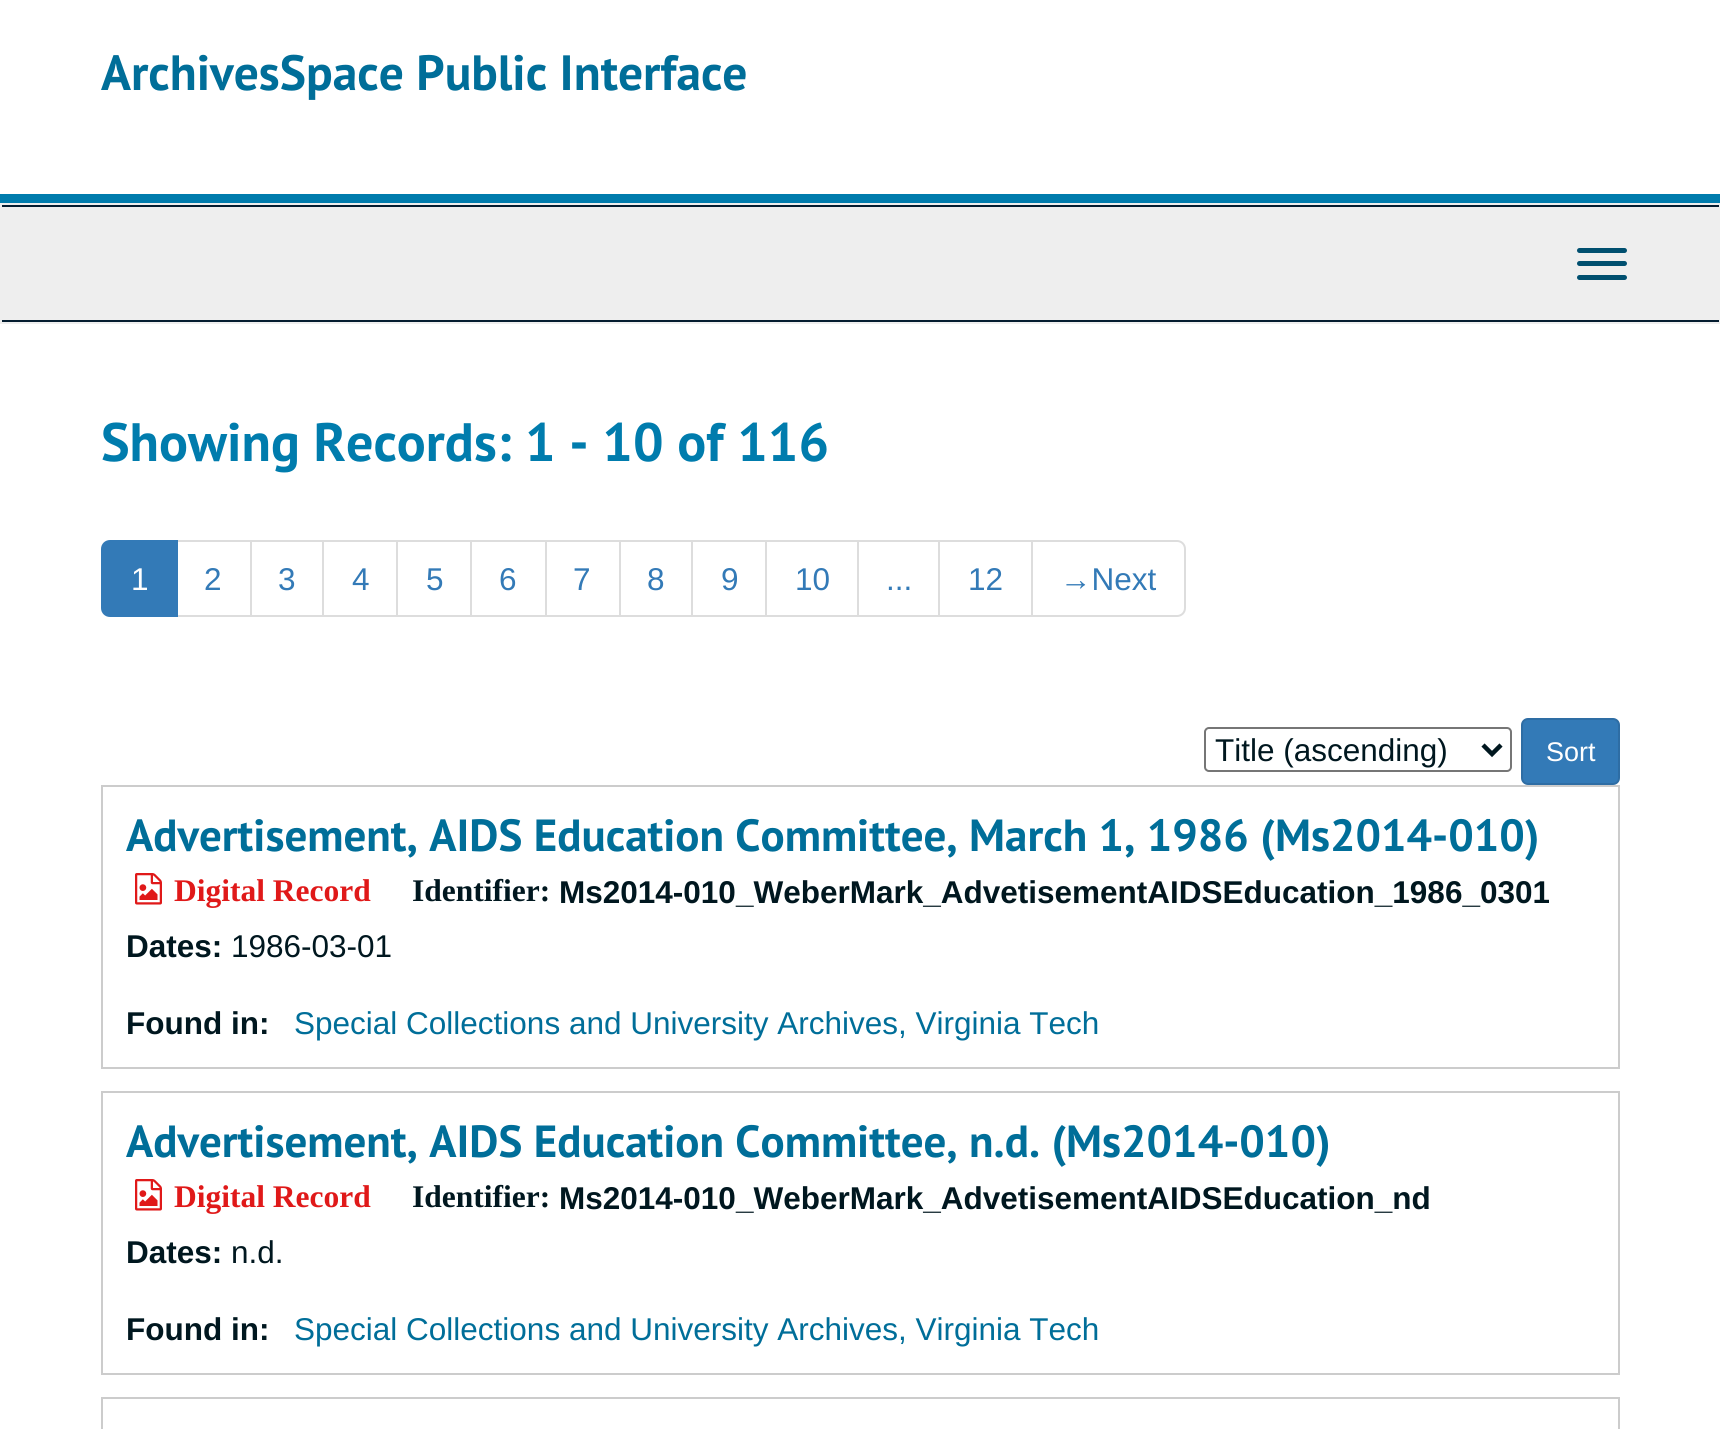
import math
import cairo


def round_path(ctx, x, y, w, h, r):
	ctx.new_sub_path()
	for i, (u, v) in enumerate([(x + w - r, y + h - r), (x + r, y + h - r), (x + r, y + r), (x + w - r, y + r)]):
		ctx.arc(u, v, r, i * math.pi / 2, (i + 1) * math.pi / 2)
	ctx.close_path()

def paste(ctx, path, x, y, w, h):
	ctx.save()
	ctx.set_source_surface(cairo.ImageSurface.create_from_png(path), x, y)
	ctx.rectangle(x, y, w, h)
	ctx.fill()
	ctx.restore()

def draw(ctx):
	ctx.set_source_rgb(1, 1, 1)
	ctx.paint()
	ctx.set_source_rgb(0, 0.486, 0.678)
	ctx.rectangle(0, 194, 1720, 9)
	ctx.fill()
	ctx.select_font_face('PT Sans', cairo.FONT_SLANT_NORMAL, cairo.FONT_WEIGHT_BOLD)
	ctx.set_font_size(49.5)
	ctx.set_source_rgb(0, 0.431, 0.6)
	ctx.move_to(101, 90)
	ctx.show_text('ArchivesSpace Public Interface')
	ctx.set_source_rgb(0.933, 0.933, 0.933)
	ctx.rectangle(0, 203, 1720, 121)
	ctx.fill()
	ctx.set_source_rgb(0.016, 0.11, 0.184)
	ctx.rectangle(2, 205, 1717, 2)
	ctx.rectangle(2, 320, 1717, 2)
	ctx.fill()
	ctx.set_source_rgb(0, 0.31, 0.435)
	round_path(ctx, 1577, 248, 50, 5, 2.5)
	ctx.fill()
	round_path(ctx, 1577, 261, 50, 5, 2.5)
	ctx.fill()
	round_path(ctx, 1577, 275, 50, 5, 2.5)
	ctx.fill()
	ctx.set_font_size(54)
	ctx.set_source_rgb(0, 0.486, 0.678)
	ctx.move_to(101, 461)
	ctx.show_text('Showing Records: 1 - 10 of 116')
	ctx.rectangle(177, 541, 74, 75)
	ctx.set_source_rgb(0.867, 0.867, 0.867)
	ctx.stroke()
	ctx.set_source_rgb(0.2, 0.478, 0.718)
	ctx.new_path()
	ctx.move_to(110, 541)
	ctx.line_to(177, 541)
	ctx.line_to(177, 616)
	ctx.line_to(110, 616)
	ctx.curve_to(105.5, 616, 102, 612.5, 102, 608)
	ctx.line_to(102, 549)
	ctx.curve_to(102, 544.5, 105.5, 541, 110, 541)
	ctx.close_path()
	ctx.fill_preserve()
	ctx.stroke()
	ctx.select_font_face('Liberation Sans')
	ctx.set_font_size(31.5)
	ctx.set_source_rgb(1, 1, 1)
	ctx.move_to(131, 590)
	ctx.show_text('1')
	ctx.set_source_rgb(0.2, 0.478, 0.718)
	ctx.move_to(204, 590)
	ctx.show_text('2')
	ctx.rectangle(251, 541, 72, 75)
	ctx.set_source_rgb(0.867, 0.867, 0.867)
	ctx.stroke()
	ctx.set_source_rgb(0.2, 0.478, 0.718)
	ctx.move_to(278, 590)
	ctx.show_text('3')
	ctx.rectangle(323, 541, 74, 75)
	ctx.set_source_rgb(0.867, 0.867, 0.867)
	ctx.stroke()
	ctx.set_source_rgb(0.2, 0.478, 0.718)
	ctx.move_to(352, 590)
	ctx.show_text('4')
	ctx.rectangle(397, 541, 75, 75)
	ctx.set_source_rgb(0.867, 0.867, 0.867)
	ctx.stroke()
	ctx.set_source_rgb(0.2, 0.478, 0.718)
	ctx.move_to(426, 590)
	ctx.show_text('5')
	ctx.set_source_rgb(1, 1, 1)
	ctx.rectangle(472, 542, 1, 73)
	ctx.fill()
	ctx.rectangle(471, 541, 75, 75)
	ctx.set_source_rgb(0.867, 0.867, 0.867)
	ctx.stroke()
	ctx.set_source_rgb(0.2, 0.478, 0.718)
	ctx.move_to(499, 590)
	ctx.show_text('6')
	ctx.rectangle(546, 541, 74, 75)
	ctx.set_source_rgb(0.867, 0.867, 0.867)
	ctx.stroke()
	ctx.set_source_rgb(0.2, 0.478, 0.718)
	ctx.move_to(573, 590)
	ctx.show_text('7')
	ctx.rectangle(620, 541, 72, 75)
	ctx.set_source_rgb(0.867, 0.867, 0.867)
	ctx.stroke()
	ctx.set_source_rgb(0.2, 0.478, 0.718)
	ctx.move_to(647, 590)
	ctx.show_text('8')
	ctx.rectangle(692, 541, 74, 75)
	ctx.set_source_rgb(0.867, 0.867, 0.867)
	ctx.stroke()
	ctx.set_source_rgb(0.2, 0.478, 0.718)
	ctx.move_to(721, 590)
	ctx.show_text('9')
	ctx.rectangle(766, 541, 93, 75)
	ctx.set_source_rgb(0.867, 0.867, 0.867)
	ctx.stroke()
	ctx.set_source_rgb(0.2, 0.478, 0.718)
	ctx.move_to(795, 590)
	ctx.show_text('10')
	ctx.set_source_rgb(1, 1, 1)
	ctx.rectangle(859, 542, 1, 73)
	ctx.fill()
	ctx.rectangle(858, 541, 82, 75)
	ctx.set_source_rgb(0.867, 0.867, 0.867)
	ctx.stroke()
	ctx.set_source_rgb(0.2, 0.478, 0.718)
	ctx.move_to(886, 590)
	ctx.show_text('...')
	ctx.set_source_rgb(1, 1, 1)
	ctx.rectangle(940, 542, 1, 73)
	ctx.fill()
	ctx.rectangle(939, 541, 93, 75)
	ctx.set_source_rgb(0.867, 0.867, 0.867)
	ctx.stroke()
	ctx.set_source_rgb(0.2, 0.478, 0.718)
	ctx.move_to(968, 590)
	ctx.show_text('12')
	ctx.set_source_rgb(1, 1, 1)
	ctx.new_path()
	ctx.move_to(1032, 541)
	ctx.line_to(1177, 541)
	ctx.curve_to(1181.5, 541, 1185, 544.5, 1185, 549)
	ctx.line_to(1185, 608)
	ctx.curve_to(1185, 612.5, 1181.5, 616, 1177, 616)
	ctx.line_to(1032, 616)
	ctx.close_path()
	ctx.fill_preserve()
	ctx.set_source_rgb(0.867, 0.867, 0.867)
	ctx.stroke()
	ctx.set_source_rgb(0.2, 0.478, 0.718)
	ctx.move_to(1060, 590)
	ctx.show_text('→Next')
	round_path(ctx, 1205, 728, 306, 43, 4)
	ctx.set_source_rgb(0.463, 0.463, 0.463)
	ctx.stroke()
	ctx.new_path()
	ctx.move_to(1483, 745)
	ctx.line_to(1492, 754)
	ctx.line_to(1501, 745)
	ctx.set_source_rgb(0, 0.09, 0.122)
	ctx.set_line_width(4.5)
	ctx.stroke()
	ctx.move_to(1215, 761)
	ctx.show_text('Title (ascending)')
	ctx.set_source_rgb(0.2, 0.478, 0.718)
	round_path(ctx, 1522, 719, 97, 65, 6)
	ctx.fill_preserve()
	ctx.set_source_rgb(0.18, 0.427, 0.643)
	ctx.set_line_width(2)
	ctx.stroke()
	ctx.set_font_size(27)
	ctx.set_source_rgb(1, 1, 1)
	ctx.move_to(1546, 761)
	ctx.show_text('Sort')
	ctx.rectangle(102, 786, 1517, 282)
	ctx.set_source_rgb(0.8, 0.8, 0.8)
	ctx.stroke()
	ctx.select_font_face('PT Sans', cairo.FONT_SLANT_NORMAL, cairo.FONT_WEIGHT_BOLD)
	ctx.set_font_size(45)
	ctx.set_source_rgb(0, 0.431, 0.6)
	ctx.move_to(126, 851)
	ctx.show_text('Advertisement, AIDS Education Committee, March 1, 1986 (Ms2014-010)')
	paste(ctx, 'media/1.png', 135, 873, 27, 32)
	ctx.select_font_face('Liberation Serif', cairo.FONT_SLANT_NORMAL, cairo.FONT_WEIGHT_BOLD)
	ctx.set_font_size(31.5)
	ctx.set_source_rgb(0.878, 0.098, 0.098)
	ctx.move_to(174, 901)
	ctx.show_text('Digital Record')
	ctx.set_source_rgb(0, 0.09, 0.122)
	ctx.move_to(412, 901)
	ctx.show_text('Identifier:')
	ctx.select_font_face('Liberation Sans', cairo.FONT_SLANT_NORMAL, cairo.FONT_WEIGHT_BOLD)
	ctx.move_to(559, 903)
	ctx.show_text('Ms2014-010_WeberMark_AdvetisementAIDSEducation_1986_0301')
	ctx.move_to(126, 957)
	ctx.show_text('Dates:')
	ctx.select_font_face('Liberation Sans')
	ctx.move_to(231, 957)
	ctx.show_text('1986-03-01')
	ctx.select_font_face('Liberation Sans', cairo.FONT_SLANT_NORMAL, cairo.FONT_WEIGHT_BOLD)
	ctx.move_to(126, 1034)
	ctx.show_text('Found in:')
	ctx.select_font_face('Liberation Sans')
	ctx.set_source_rgb(0, 0.431, 0.6)
	ctx.move_to(294, 1034)
	ctx.show_text('Special Collections and University Archives, Virginia Tech')
	ctx.rectangle(102, 1092, 1517, 282)
	ctx.set_source_rgb(0.8, 0.8, 0.8)
	ctx.stroke()
	ctx.select_font_face('PT Sans', cairo.FONT_SLANT_NORMAL, cairo.FONT_WEIGHT_BOLD)
	ctx.set_font_size(45)
	ctx.set_source_rgb(0, 0.431, 0.6)
	ctx.move_to(126, 1157)
	ctx.show_text('Advertisement, AIDS Education Committee, n.d. (Ms2014-010)')
	paste(ctx, 'media/1.png', 135, 1179, 27, 32)
	ctx.select_font_face('Liberation Serif', cairo.FONT_SLANT_NORMAL, cairo.FONT_WEIGHT_BOLD)
	ctx.set_font_size(31.5)
	ctx.set_source_rgb(0.878, 0.098, 0.098)
	ctx.move_to(174, 1207)
	ctx.show_text('Digital Record')
	ctx.set_source_rgb(0, 0.09, 0.122)
	ctx.move_to(412, 1207)
	ctx.show_text('Identifier:')
	ctx.select_font_face('Liberation Sans', cairo.FONT_SLANT_NORMAL, cairo.FONT_WEIGHT_BOLD)
	ctx.move_to(559, 1209)
	ctx.show_text('Ms2014-010_WeberMark_AdvetisementAIDSEducation_nd')
	ctx.move_to(126, 1263)
	ctx.show_text('Dates:')
	ctx.select_font_face('Liberation Sans')
	ctx.move_to(231, 1263)
	ctx.show_text('n.d.')
	ctx.select_font_face('Liberation Sans', cairo.FONT_SLANT_NORMAL, cairo.FONT_WEIGHT_BOLD)
	ctx.move_to(126, 1340)
	ctx.show_text('Found in:')
	ctx.select_font_face('Liberation Sans')
	ctx.set_source_rgb(0, 0.431, 0.6)
	ctx.move_to(294, 1340)
	ctx.show_text('Special Collections and University Archives, Virginia Tech')
	ctx.rectangle(102, 1398, 1517, 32)
	ctx.set_source_rgb(0.8, 0.8, 0.8)
	ctx.stroke()


surface = cairo.ImageSurface(cairo.FORMAT_RGB24, 1720, 1429)
ctx = cairo.Context(surface)
options = cairo.FontOptions()
options.set_hint_metrics(cairo.HINT_METRICS_OFF)
options.set_hint_style(cairo.HINT_STYLE_NONE)
ctx.set_font_options(options)
ctx.set_miter_limit(4)
draw(ctx)
surface.write_to_png('image.png')
